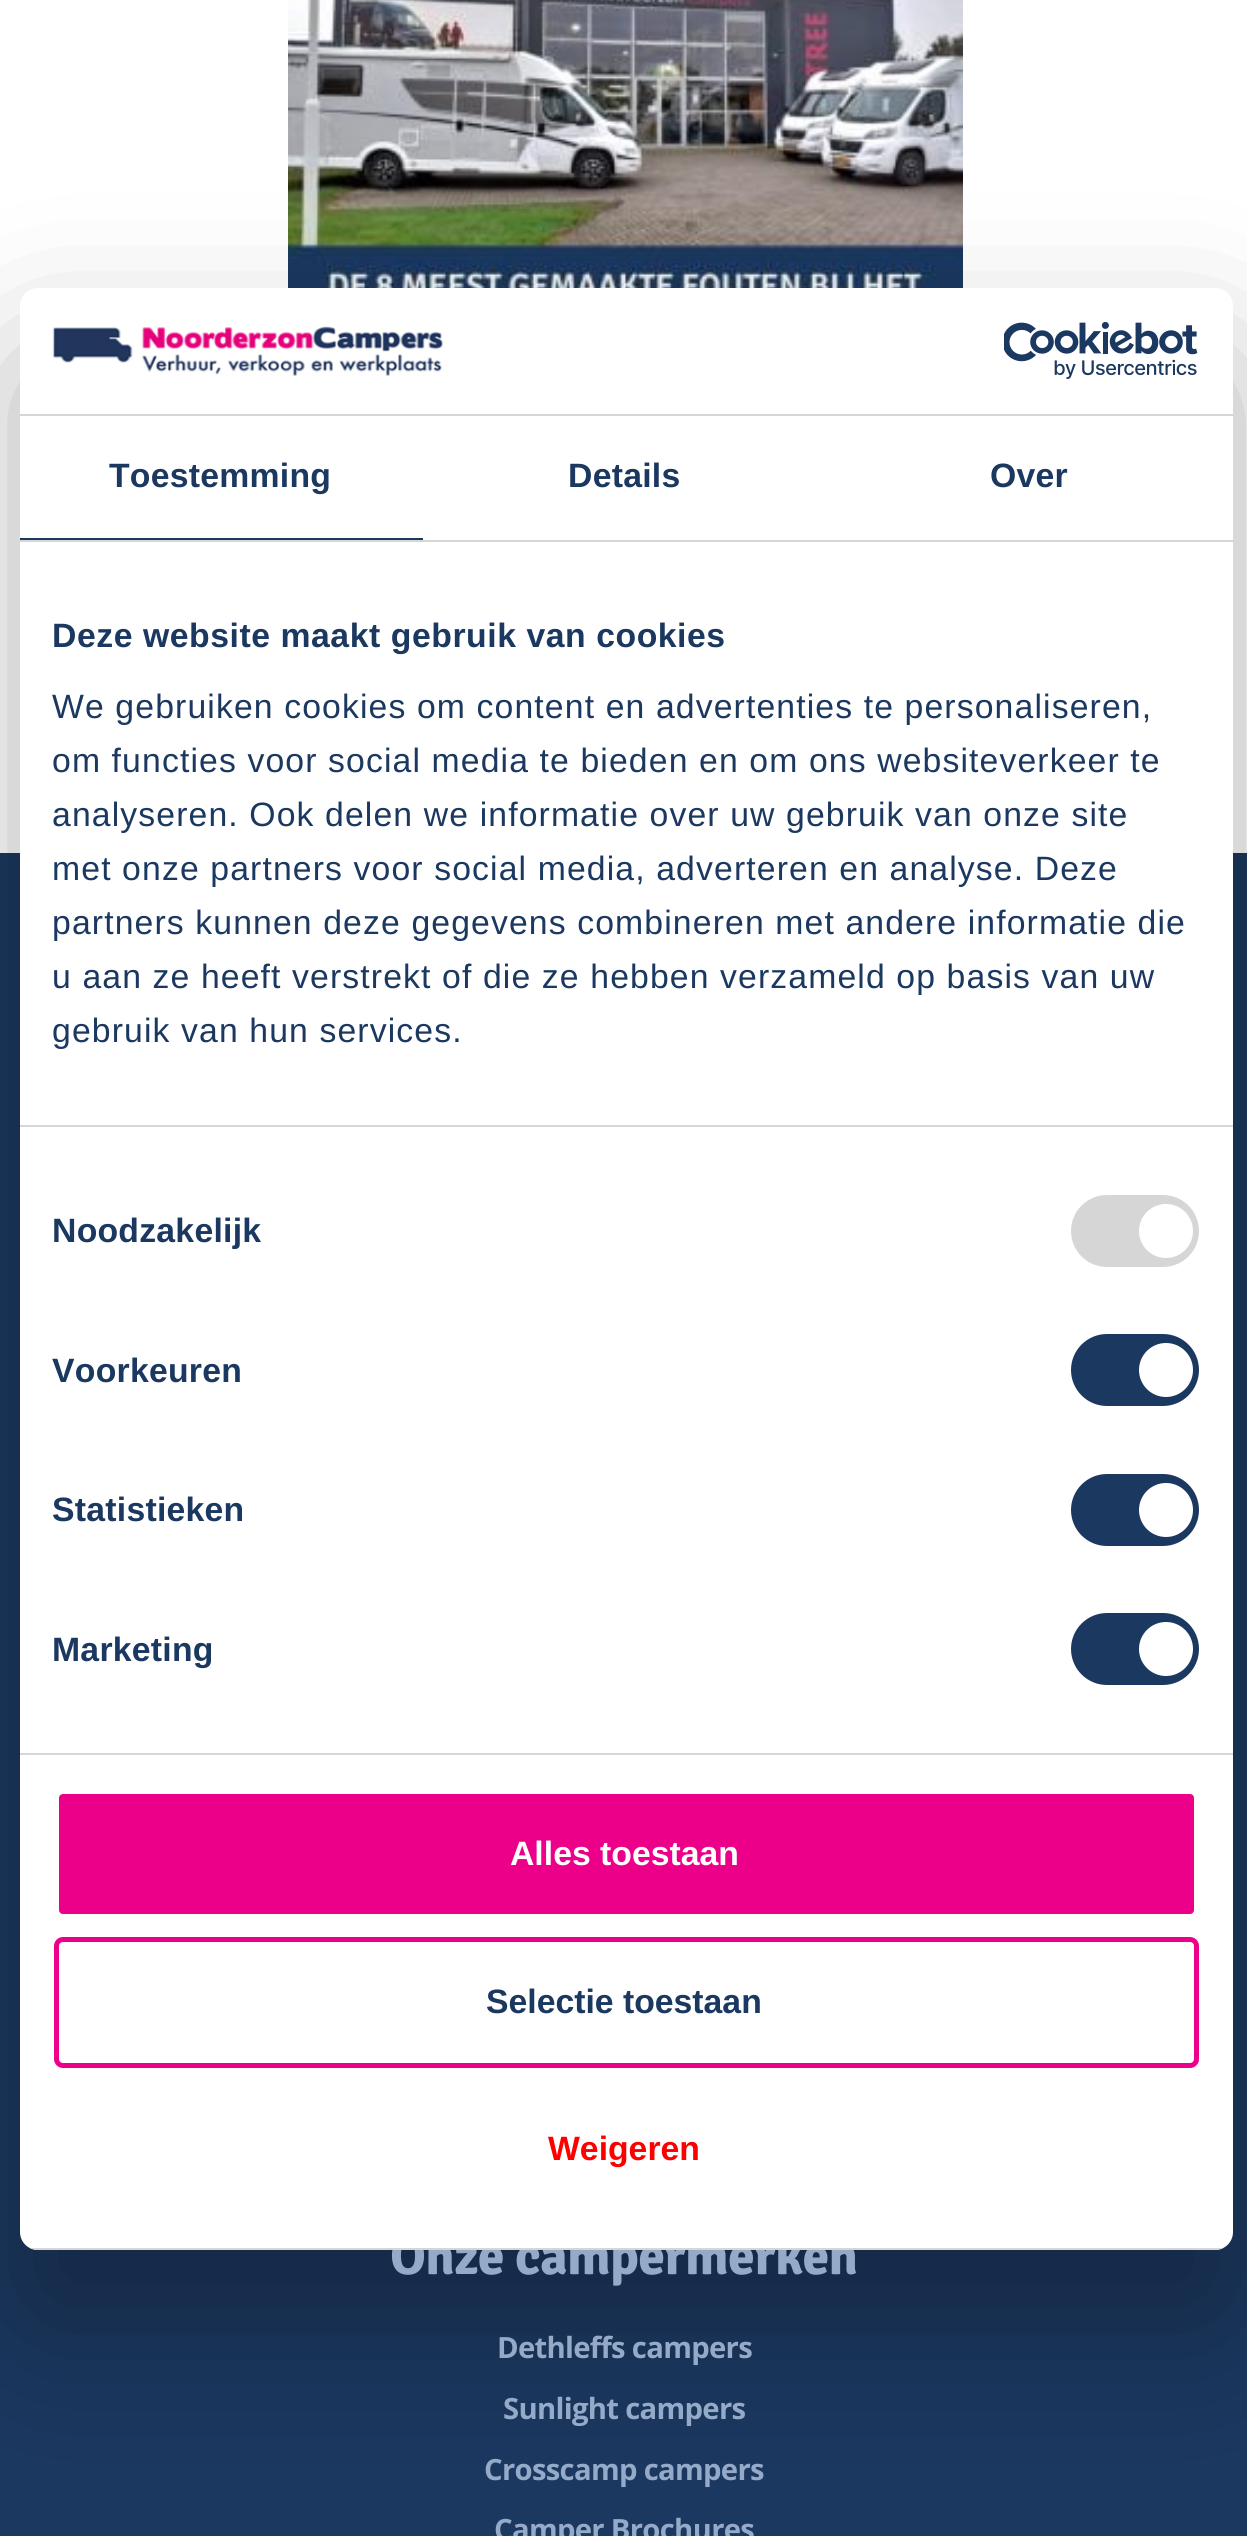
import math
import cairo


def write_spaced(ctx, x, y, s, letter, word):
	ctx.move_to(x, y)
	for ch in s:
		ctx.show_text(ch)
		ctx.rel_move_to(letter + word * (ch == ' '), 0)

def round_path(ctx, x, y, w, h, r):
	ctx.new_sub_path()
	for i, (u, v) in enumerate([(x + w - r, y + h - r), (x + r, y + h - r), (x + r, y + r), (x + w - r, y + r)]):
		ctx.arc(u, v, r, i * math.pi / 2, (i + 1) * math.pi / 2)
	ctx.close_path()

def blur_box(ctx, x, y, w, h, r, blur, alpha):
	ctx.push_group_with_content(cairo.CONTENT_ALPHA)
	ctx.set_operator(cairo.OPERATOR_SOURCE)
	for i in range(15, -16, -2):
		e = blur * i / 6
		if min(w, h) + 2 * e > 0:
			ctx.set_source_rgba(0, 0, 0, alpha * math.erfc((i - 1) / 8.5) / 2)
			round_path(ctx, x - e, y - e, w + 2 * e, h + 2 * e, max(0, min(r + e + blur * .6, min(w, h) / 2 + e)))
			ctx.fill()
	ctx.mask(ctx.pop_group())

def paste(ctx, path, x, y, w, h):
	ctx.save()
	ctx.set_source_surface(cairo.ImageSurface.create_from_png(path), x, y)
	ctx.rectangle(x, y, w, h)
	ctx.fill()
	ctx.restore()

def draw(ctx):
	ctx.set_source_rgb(1, 1, 1)
	ctx.paint()
	paste(ctx, 'media/1.png', 288, 0, 675, 288)
	ctx.set_source_rgb(0.106, 0.22, 0.376)
	ctx.rectangle(0, 853, 1247, 1683)
	ctx.fill()
	ctx.set_source_rgb(0, 0, 0)
	blur_box(ctx, 20, 360, 1213, 1962, 18, 76.5, 0.3)
	ctx.select_font_face('Signika', cairo.FONT_SLANT_NORMAL, cairo.FONT_WEIGHT_BOLD)
	ctx.set_font_size(54)
	ctx.set_source_rgb(0.58, 0.667, 0.784)
	write_spaced(ctx, 390, 2274, 'Onze campermerken', -0.7, 0)
	ctx.set_source_rgb(1, 1, 1)
	round_path(ctx, 20, 288, 1213, 1962, 18)
	ctx.fill()
	ctx.set_source_rgb(0.839, 0.839, 0.839)
	ctx.rectangle(20, 414, 1213, 2)
	ctx.fill()
	paste(ctx, 'media/2.png', 52, 326, 391, 50)
	paste(ctx, 'media/3.png', 1004, 322, 194, 57)
	ctx.rectangle(20, 540, 1213, 2)
	ctx.fill()
	ctx.set_source_rgb(0.106, 0.22, 0.376)
	ctx.rectangle(20, 538, 403, 2)
	ctx.fill()
	ctx.select_font_face('Liberation Sans', cairo.FONT_SLANT_NORMAL, cairo.FONT_WEIGHT_BOLD)
	ctx.set_font_size(33.75)
	for x, y, s in [
		(109, 487, 'Toestemming'),
		(568, 487, 'Details'),
		(990, 487, 'Over'),
	]:
		write_spaced(ctx, x, y, s, 0.25, 0)
	ctx.set_source_rgb(0.839, 0.839, 0.839)
	ctx.rectangle(20, 1125, 1213, 2)
	ctx.fill()
	ctx.set_source_rgb(0.106, 0.22, 0.376)
	write_spaced(ctx, 52, 647, 'Deze website maakt gebruik van cookies', 0.55, 0)
	ctx.select_font_face('Liberation Sans')
	for x, y, s in [
		(52, 718, 'We gebruiken cookies om content en advertenties te personaliseren,'),
		(52, 772, 'om functies voor social media te bieden en om ons websiteverkeer te'),
		(52, 826, 'analyseren. Ook delen we informatie over uw gebruik van onze site'),
		(52, 880, 'met onze partners voor social media, adverteren en analyse. Deze'),
		(52, 934, 'partners kunnen deze gegevens combineren met andere informatie die'),
		(52, 988, 'u aan ze heeft verstrekt of die ze hebben verzameld op basis van uw'),
		(52, 1042, 'gebruik van hun services.'),
	]:
		write_spaced(ctx, x, y, s, 1.12, 0)
	ctx.set_source_rgb(0.839, 0.839, 0.839)
	ctx.rectangle(20, 1753, 1213, 2)
	ctx.fill()
	ctx.select_font_face('Liberation Sans', cairo.FONT_SLANT_NORMAL, cairo.FONT_WEIGHT_BOLD)
	ctx.set_source_rgb(0.106, 0.22, 0.376)
	write_spaced(ctx, 52, 1242, 'Noodzakelijk', 0.25, 0)
	ctx.set_source_rgb(0.839, 0.839, 0.839)
	round_path(ctx, 1071, 1195, 128, 72, 36)
	ctx.fill()
	ctx.set_source_rgb(1, 1, 1)
	ctx.arc(1166, 1231, 27, 0, 2 * math.pi)
	ctx.fill()
	ctx.set_source_rgb(0.106, 0.22, 0.376)
	write_spaced(ctx, 52, 1382, 'Voorkeuren', 0.25, 0)
	round_path(ctx, 1071, 1334, 128, 72, 36)
	ctx.fill()
	ctx.set_source_rgb(1, 1, 1)
	ctx.arc(1166, 1370, 27, 0, 2 * math.pi)
	ctx.fill()
	ctx.set_source_rgb(0.106, 0.22, 0.376)
	write_spaced(ctx, 52, 1521, 'Statistieken', 0.25, 0)
	round_path(ctx, 1071, 1474, 128, 72, 36)
	ctx.fill()
	ctx.set_source_rgb(1, 1, 1)
	ctx.arc(1166, 1510, 27, 0, 2 * math.pi)
	ctx.fill()
	ctx.set_source_rgb(0.106, 0.22, 0.376)
	write_spaced(ctx, 52, 1661, 'Marketing', 0.25, 0)
	round_path(ctx, 1071, 1613, 128, 72, 36)
	ctx.fill()
	ctx.set_source_rgb(1, 1, 1)
	ctx.arc(1166, 1649, 27, 0, 2 * math.pi)
	ctx.fill()
	ctx.save()
	round_path(ctx, 20, 288, 1213, 1962, 18)
	ctx.clip()
	ctx.set_source_rgb(0.839, 0.839, 0.839)
	ctx.rectangle(30, 2248, 1193, 2)
	ctx.fill()
	ctx.restore()
	ctx.set_source_rgb(0.925, 0, 0.541)
	round_path(ctx, 56.5, 1791.5, 1140, 125, 6.5)
	ctx.fill_preserve()
	ctx.set_source_rgb(1, 1, 1)
	ctx.set_line_width(5)
	ctx.stroke()
	ctx.move_to(510, 1865)
	ctx.show_text('Alles toestaan')
	round_path(ctx, 56.5, 1939.5, 1140, 126, 6.5)
	ctx.set_source_rgb(0.925, 0, 0.541)
	ctx.stroke()
	ctx.set_source_rgb(0.106, 0.22, 0.376)
	ctx.move_to(486, 2013)
	ctx.show_text('Selectie toestaan')
	ctx.set_source_rgb(1, 0, 0)
	ctx.move_to(548, 2160)
	ctx.show_text('Weigeren')
	ctx.select_font_face('Open Sans', cairo.FONT_SLANT_NORMAL, cairo.FONT_WEIGHT_BOLD)
	ctx.set_font_size(29.25)
	ctx.set_source_rgb(0.58, 0.667, 0.784)
	for x, y, s in [
		(497, 2358, 'Dethleffs campers'),
		(503, 2419, 'Sunlight campers'),
		(484, 2480, 'Crosscamp campers'),
		(494, 2540, 'Camper Brochures'),
	]:
		write_spaced(ctx, x, y, s, -0.7, 0)


surface = cairo.ImageSurface(cairo.FORMAT_RGB24, 1247, 2536)
ctx = cairo.Context(surface)
options = cairo.FontOptions()
options.set_hint_metrics(cairo.HINT_METRICS_OFF)
options.set_hint_style(cairo.HINT_STYLE_NONE)
ctx.set_font_options(options)
ctx.set_miter_limit(4)
draw(ctx)
surface.write_to_png('image.png')
